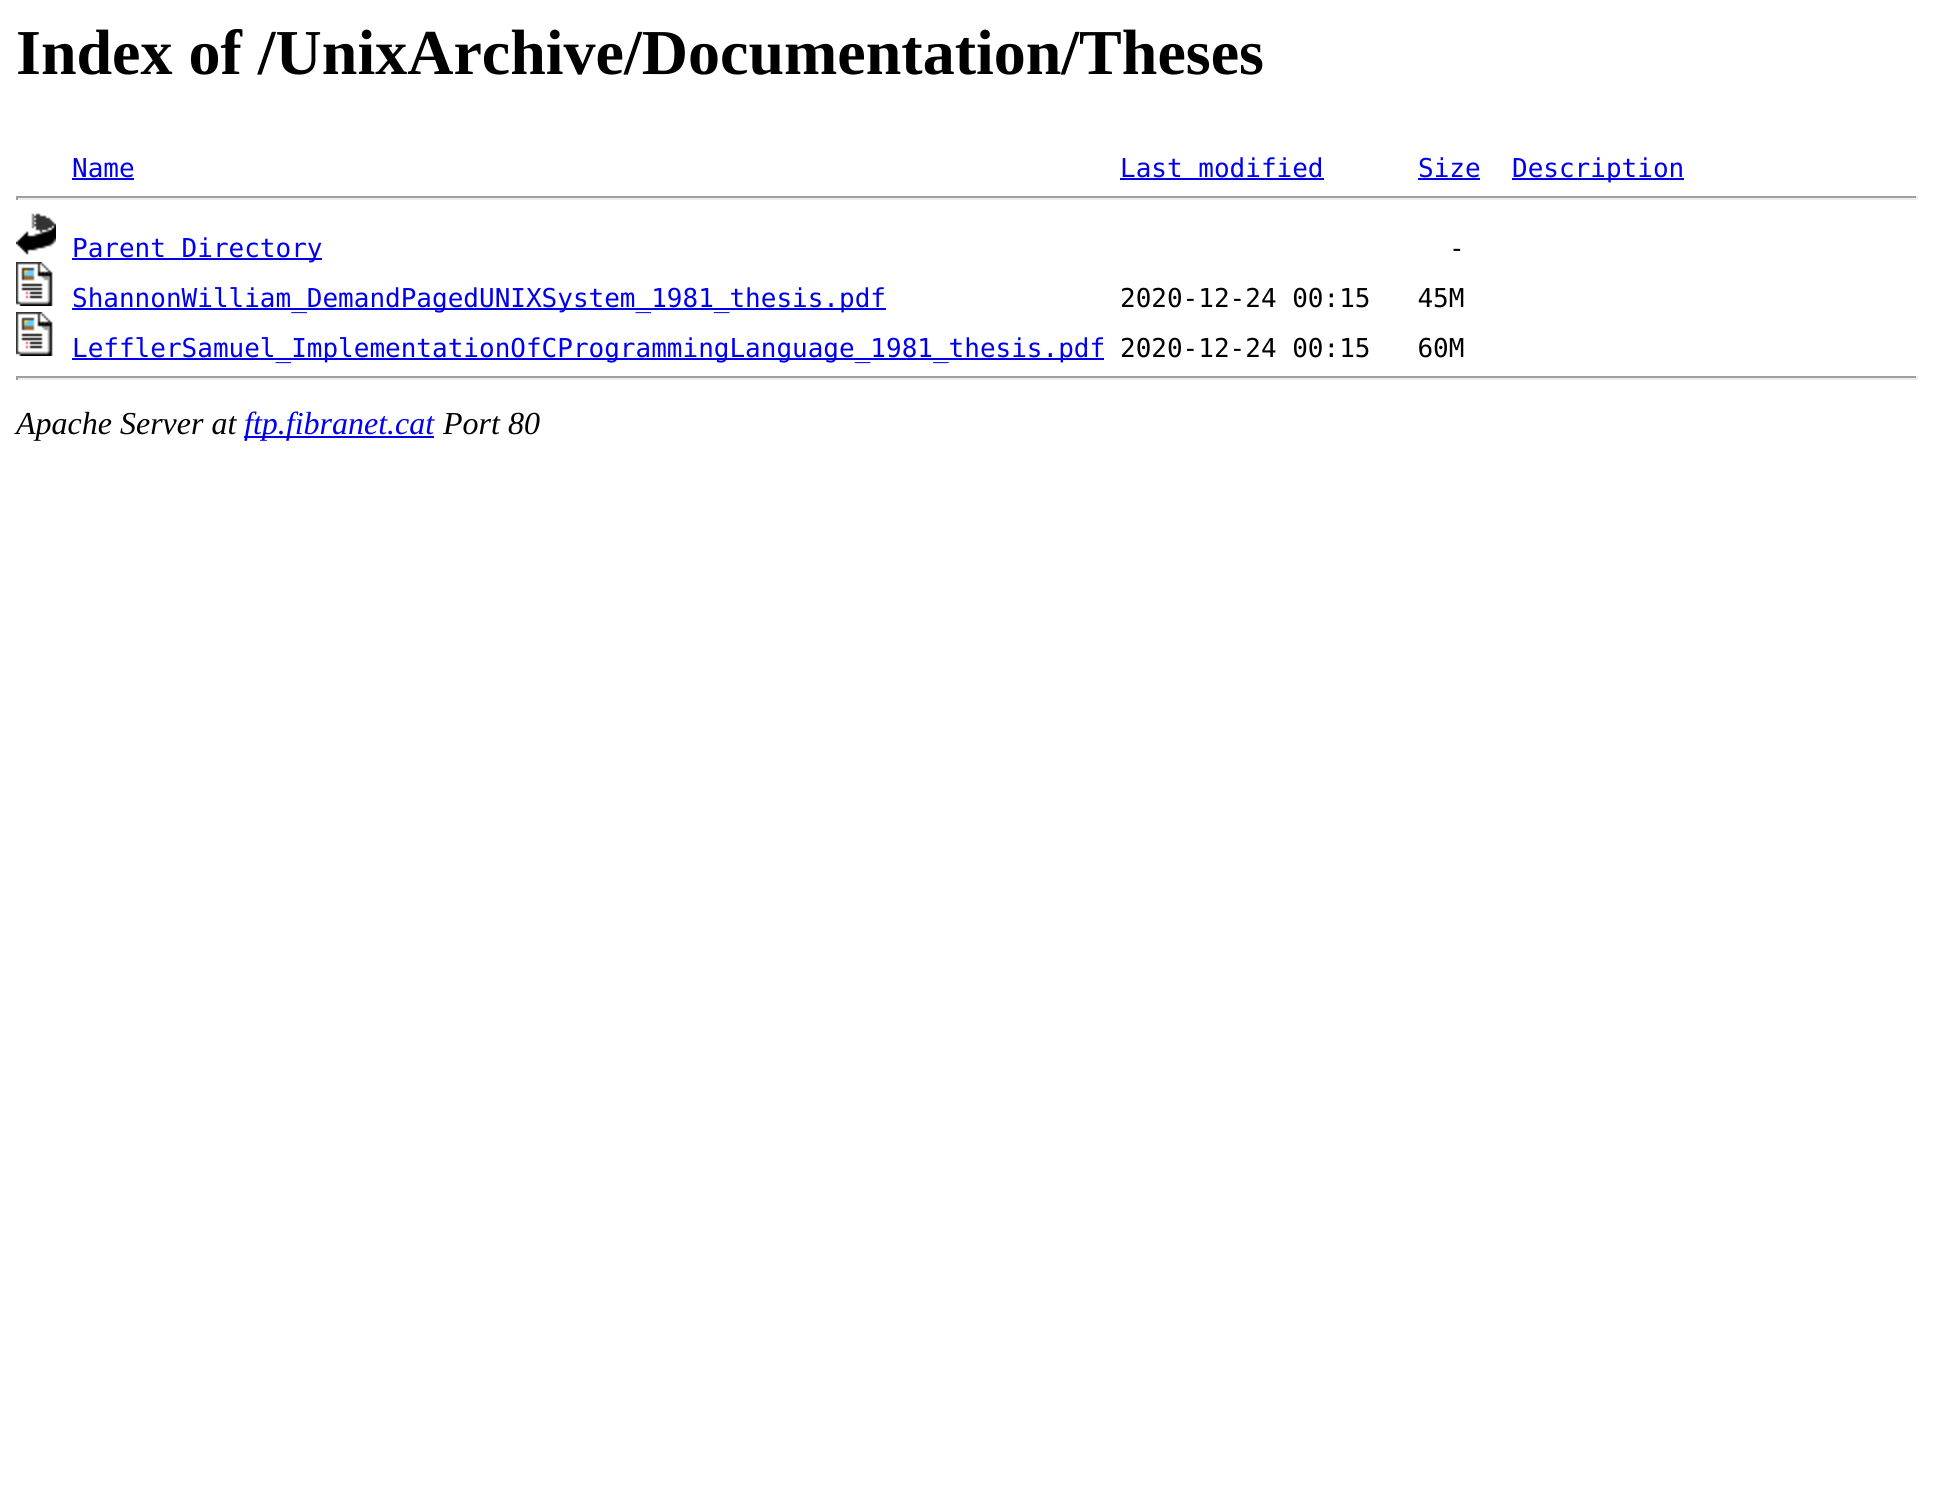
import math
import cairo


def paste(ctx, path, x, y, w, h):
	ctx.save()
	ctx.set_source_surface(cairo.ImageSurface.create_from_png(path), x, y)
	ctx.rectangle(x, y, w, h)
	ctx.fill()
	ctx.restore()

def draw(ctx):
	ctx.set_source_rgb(1, 1, 1)
	ctx.paint()
	ctx.select_font_face('Liberation Serif', cairo.FONT_SLANT_NORMAL, cairo.FONT_WEIGHT_BOLD)
	ctx.set_font_size(64)
	ctx.set_source_rgb(0, 0, 0)
	ctx.move_to(16, 74)
	ctx.show_text('Index of /UnixArchive/Documentation/Theses')
	ctx.select_font_face('DejaVu Sans Mono')
	ctx.set_font_size(26)
	ctx.set_source_rgb(0, 0, 0.933)
	ctx.move_to(72, 177)
	ctx.show_text('Name')
	ctx.rectangle(72, 178, 62, 2)
	ctx.fill()
	ctx.move_to(1120, 177)
	ctx.show_text('Last modified')
	ctx.rectangle(1120, 178, 204, 2)
	ctx.fill()
	ctx.move_to(1418, 177)
	ctx.show_text('Size')
	ctx.rectangle(1418, 178, 62, 2)
	ctx.fill()
	ctx.rectangle(1512, 178, 172, 2)
	ctx.fill()
	ctx.move_to(1512, 177)
	ctx.show_text('Description')
	ctx.set_source_rgb(0.624, 0.624, 0.624)
	ctx.rectangle(16, 196, 1902, 2)
	ctx.fill()
	ctx.set_source_rgb(0.933, 0.933, 0.933)
	ctx.rectangle(1916, 196, 2, 4)
	ctx.rectangle(16, 198, 1902, 2)
	ctx.fill()
	ctx.set_source_rgb(0.624, 0.624, 0.624)
	ctx.rectangle(16, 196, 2, 4)
	ctx.fill()
	paste(ctx, 'media/1.png', 16, 213, 40, 42)
	ctx.set_source_rgb(0, 0, 0.933)
	ctx.rectangle(72, 258, 250, 2)
	ctx.fill()
	ctx.move_to(72, 257)
	ctx.show_text('Parent Directory')
	ctx.set_source_rgb(0, 0, 0)
	ctx.move_to(1449, 257)
	ctx.show_text('-')
	paste(ctx, 'media/2.png', 16, 262, 37, 44)
	ctx.set_source_rgb(0, 0, 0.933)
	ctx.rectangle(72, 308, 814, 2)
	ctx.fill()
	ctx.move_to(72, 307)
	ctx.show_text('ShannonWilliam_DemandPagedUNIXSystem_1981_thesis.pdf')
	ctx.set_source_rgb(0, 0, 0)
	ctx.move_to(1120, 307)
	ctx.show_text('2020-12-24 00:15   45M')
	paste(ctx, 'media/2.png', 16, 312, 37, 44)
	ctx.set_source_rgb(0, 0, 0.933)
	ctx.rectangle(72, 358, 1032, 2)
	ctx.fill()
	ctx.move_to(72, 357)
	ctx.show_text('LefflerSamuel_ImplementationOfCProgrammingLanguage_1981_thesis.pdf')
	ctx.set_source_rgb(0, 0, 0)
	ctx.move_to(1120, 357)
	ctx.show_text('2020-12-24 00:15   60M')
	ctx.set_source_rgb(0.624, 0.624, 0.624)
	ctx.rectangle(16, 376, 1902, 2)
	ctx.fill()
	ctx.set_source_rgb(0.933, 0.933, 0.933)
	ctx.rectangle(1916, 376, 2, 4)
	ctx.rectangle(16, 378, 1902, 2)
	ctx.fill()
	ctx.set_source_rgb(0.624, 0.624, 0.624)
	ctx.rectangle(16, 376, 2, 4)
	ctx.fill()
	ctx.select_font_face('Liberation Serif', cairo.FONT_SLANT_ITALIC)
	ctx.set_font_size(32)
	ctx.set_source_rgb(0, 0, 0)
	ctx.move_to(16, 434)
	ctx.show_text('Apache Server at')
	ctx.set_source_rgb(0, 0, 0.933)
	ctx.rectangle(244, 436, 190, 2)
	ctx.fill()
	ctx.move_to(244, 434)
	ctx.show_text('ftp.fibranet.cat')
	ctx.set_source_rgb(0, 0, 0)
	ctx.move_to(443, 434)
	ctx.show_text('Port 80')


surface = cairo.ImageSurface(cairo.FORMAT_RGB24, 1933, 1511)
ctx = cairo.Context(surface)
options = cairo.FontOptions()
options.set_hint_metrics(cairo.HINT_METRICS_OFF)
options.set_hint_style(cairo.HINT_STYLE_NONE)
ctx.set_font_options(options)
ctx.set_miter_limit(4)
draw(ctx)
surface.write_to_png('image.png')
